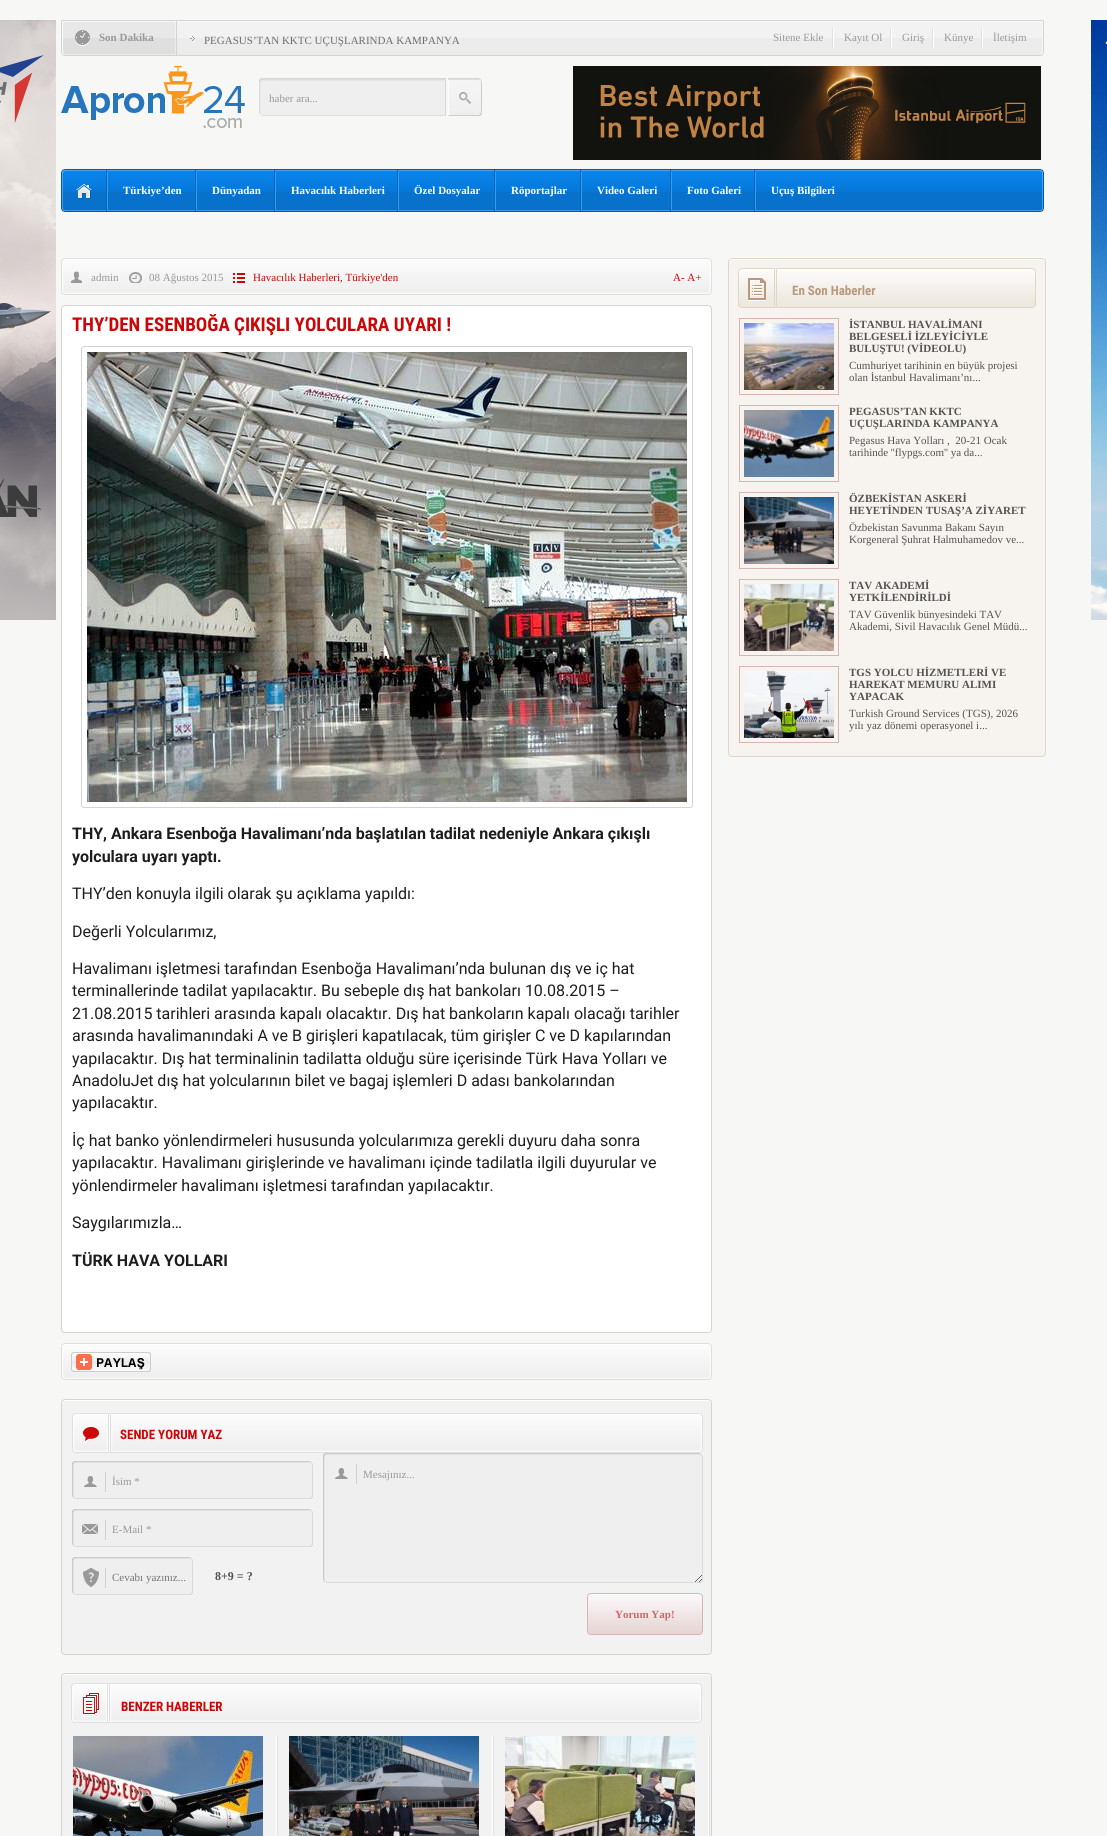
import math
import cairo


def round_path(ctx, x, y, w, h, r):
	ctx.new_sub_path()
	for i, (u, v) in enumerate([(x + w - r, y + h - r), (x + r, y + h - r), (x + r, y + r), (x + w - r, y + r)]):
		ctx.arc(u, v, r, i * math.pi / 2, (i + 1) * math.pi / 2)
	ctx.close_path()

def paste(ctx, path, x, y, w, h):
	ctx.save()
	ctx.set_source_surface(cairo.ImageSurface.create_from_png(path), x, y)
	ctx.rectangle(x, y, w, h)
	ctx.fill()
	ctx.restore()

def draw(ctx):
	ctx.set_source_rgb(0.965, 0.965, 0.961)
	ctx.paint()
	paste(ctx, 'media/1.png', 0, 20, 56, 600)
	paste(ctx, 'media/2.png', 1091, 20, 16, 600)
	paste(ctx, 'media/3.png', 61, 20, 116, 36)
	ctx.select_font_face('Liberation Serif', cairo.FONT_SLANT_NORMAL, cairo.FONT_WEIGHT_BOLD)
	ctx.set_font_size(11)
	ctx.set_source_rgb(0.6, 0.6, 0.6)
	ctx.move_to(99, 41)
	ctx.show_text('Son Dakika')
	paste(ctx, 'media/4.png', 177, 20, 863, 36)
	paste(ctx, 'media/5.png', 190, 36, 5, 5)
	ctx.select_font_face('Liberation Serif')
	ctx.set_source_rgb(0.431, 0.431, 0.431)
	ctx.move_to(204, 44)
	ctx.show_text('PEGASUS’TAN KKTC UÇUŞLARINDA KAMPANYA')
	ctx.set_source_rgb(0.6, 0.6, 0.6)
	ctx.move_to(773, 41)
	ctx.show_text('Sitene Ekle')
	paste(ctx, 'media/6.png', 832, 28, 2, 20)
	ctx.move_to(844, 41)
	ctx.show_text('Kayıt Ol')
	paste(ctx, 'media/6.png', 890, 28, 2, 20)
	ctx.move_to(902, 41)
	ctx.show_text('Giriş')
	paste(ctx, 'media/6.png', 932, 28, 2, 20)
	ctx.move_to(944, 41)
	ctx.show_text('Künye')
	paste(ctx, 'media/6.png', 981, 28, 2, 20)
	ctx.move_to(993, 41)
	ctx.show_text('İletişim')
	paste(ctx, 'media/7.png', 1040, 20, 4, 36)
	paste(ctx, 'media/8.png', 61, 66, 184, 62)
	paste(ctx, 'media/9.png', 259, 78, 187, 38)
	ctx.move_to(269, 102)
	ctx.show_text('haber ara...')
	paste(ctx, 'media/10.png', 448, 78, 34, 38)
	paste(ctx, 'media/11.png', 573, 66, 468, 94)
	paste(ctx, 'media/12.png', 61, 169, 983, 43)
	paste(ctx, 'media/13.png', 106, 170, 2, 41)
	paste(ctx, 'media/14.png', 76, 184, 17, 15)
	paste(ctx, 'media/13.png', 195, 170, 2, 41)
	ctx.select_font_face('Liberation Serif', cairo.FONT_SLANT_NORMAL, cairo.FONT_WEIGHT_BOLD)
	ctx.set_source_rgb(1, 1, 1)
	ctx.move_to(123, 194)
	ctx.show_text('Türkiye’den')
	paste(ctx, 'media/13.png', 274, 170, 2, 41)
	ctx.move_to(212, 194)
	ctx.show_text('Dünyadan')
	paste(ctx, 'media/13.png', 397, 170, 2, 41)
	ctx.move_to(291, 194)
	ctx.show_text('Havacılık Haberleri')
	paste(ctx, 'media/13.png', 494, 170, 2, 41)
	ctx.move_to(414, 194)
	ctx.show_text('Özel Dosyalar')
	paste(ctx, 'media/13.png', 580, 170, 2, 41)
	ctx.move_to(511, 194)
	ctx.show_text('Röportajlar')
	paste(ctx, 'media/13.png', 670, 170, 2, 41)
	ctx.move_to(597, 194)
	ctx.show_text('Video Galeri')
	paste(ctx, 'media/13.png', 754, 170, 2, 41)
	ctx.move_to(687, 194)
	ctx.show_text('Foto Galeri')
	ctx.move_to(771, 194)
	ctx.show_text('Uçuş Bilgileri')
	paste(ctx, 'media/15.png', 61, 258, 651, 37)
	paste(ctx, 'media/16.png', 71, 271, 11, 12)
	ctx.select_font_face('Liberation Serif')
	ctx.set_source_rgb(0.6, 0.6, 0.6)
	ctx.move_to(91, 281)
	ctx.show_text('admin')
	paste(ctx, 'media/17.png', 129, 272, 13, 11)
	ctx.move_to(149, 281)
	ctx.show_text('08 Ağustos 2015')
	paste(ctx, 'media/18.png', 233, 273, 12, 10)
	ctx.set_source_rgb(0.796, 0.027, 0.027)
	ctx.move_to(253, 281)
	ctx.show_text('Havacılık Haberleri, Türkiye\'den')
	ctx.move_to(673, 281)
	ctx.show_text('A- A+')
	paste(ctx, 'media/19.png', 61, 305, 651, 9)
	ctx.set_source_rgb(1, 1, 1)
	ctx.rectangle(62, 314, 649, 1015)
	ctx.fill()
	ctx.set_source_rgb(0.831, 0.831, 0.831)
	ctx.rectangle(711, 314, 1, 1015)
	ctx.rectangle(61, 314, 1, 1015)
	ctx.fill()
	ctx.save()
	ctx.rectangle(72, 314, 630, 1010)
	ctx.clip()
	ctx.select_font_face('Roboto Condensed', cairo.FONT_SLANT_NORMAL, cairo.FONT_WEIGHT_BOLD)
	ctx.set_font_size(19)
	ctx.set_source_rgb(0.796, 0.027, 0.027)
	ctx.move_to(72, 331)
	ctx.show_text('THY’DEN ESENBOĞA ÇIKIŞLI YOLCULARA UYARI !')
	ctx.restore()
	round_path(ctx, 81.5, 346.5, 611, 461, 2.5)
	ctx.set_line_width(1)
	ctx.stroke()
	paste(ctx, 'media/20.png', 87, 352, 600, 450)
	ctx.select_font_face('Roboto', cairo.FONT_SLANT_NORMAL, cairo.FONT_WEIGHT_BOLD)
	ctx.set_font_size(16)
	ctx.set_source_rgb(0.114, 0.114, 0.114)
	ctx.move_to(72, 839)
	ctx.show_text('THY, Ankara Esenboğa Havalimanı’nda başlatılan tadilat nedeniyle Ankara çıkışlı')
	ctx.move_to(72, 862)
	ctx.show_text('yolculara uyarı yaptı.')
	ctx.select_font_face('Roboto')
	for x, y, s in [
		(72, 899, 'THY’den konuyla ilgili olarak şu açıklama yapıldı:'),
		(72, 937, 'Değerli Yolcularımız,'),
		(72, 974, 'Havalimanı işletmesi tarafından Esenboğa Havalimanı’nda bulunan dış ve iç hat'),
		(72, 996, 'terminallerinde tadilat yapılacaktır. Bu sebeple dış hat bankoları 10.08.2015 –'),
		(72, 1019, '21.08.2015 tarihleri arasında kapalı olacaktır. Dış hat bankoların kapalı olacağı tarihler'),
		(72, 1041, 'arasında havalimanındaki A ve B girişleri kapatılacak, tüm girişler C ve D kapılarından'),
		(72, 1064, 'yapılacaktır. Dış hat terminalinin tadilatta olduğu süre içerisinde Türk Hava Yolları ve'),
		(72, 1086, 'AnadoluJet dış hat yolcularının bilet ve bagaj işlemleri D adası bankolarından'),
		(72, 1108, 'yapılacaktır.'),
		(72, 1146, 'İç hat banko yönlendirmeleri hususunda yolcularımıza gerekli duyuru daha sonra'),
		(72, 1168, 'yapılacaktır. Havalimanı girişlerinde ve havalimanı içinde tadilatla ilgili duyurular ve'),
		(72, 1191, 'yönlendirmeler havalimanı işletmesi tarafından yapılacaktır.'),
		(72, 1228, 'Saygılarımızla…'),
	]:
		ctx.move_to(x, y)
		ctx.show_text(s)
	ctx.select_font_face('Roboto', cairo.FONT_SLANT_NORMAL, cairo.FONT_WEIGHT_BOLD)
	ctx.move_to(72, 1266)
	ctx.show_text('TÜRK HAVA YOLLARI')
	paste(ctx, 'media/21.png', 61, 1329, 651, 4)
	paste(ctx, 'media/15.png', 61, 1343, 651, 37)
	paste(ctx, 'media/22.png', 71, 1352, 80, 20)
	paste(ctx, 'media/23.png', 61, 1399, 651, 4)
	ctx.set_source_rgb(0.949, 0.949, 0.949)
	ctx.rectangle(62, 1403, 649, 241)
	ctx.fill()
	ctx.set_source_rgb(0.831, 0.831, 0.831)
	ctx.rectangle(711, 1403, 1, 241)
	ctx.rectangle(61, 1403, 1, 241)
	ctx.fill()
	paste(ctx, 'media/24.png', 72, 1413, 38, 40)
	paste(ctx, 'media/25.png', 110, 1413, 593, 40)
	ctx.select_font_face('Roboto Condensed', cairo.FONT_SLANT_NORMAL, cairo.FONT_WEIGHT_BOLD)
	ctx.set_font_size(13)
	ctx.set_source_rgb(0.796, 0.027, 0.027)
	ctx.move_to(120, 1439)
	ctx.show_text('SENDE YORUM YAZ')
	paste(ctx, 'media/26.png', 72, 1461, 241, 38)
	ctx.select_font_face('Liberation Serif')
	ctx.set_font_size(11)
	ctx.set_source_rgb(0.6, 0.6, 0.6)
	ctx.move_to(112, 1485)
	ctx.show_text('İsim *')
	paste(ctx, 'media/27.png', 72, 1509, 241, 38)
	ctx.move_to(112, 1533)
	ctx.show_text('E-Mail *')
	paste(ctx, 'media/28.png', 72, 1557, 121, 38)
	ctx.set_source_rgb(0.459, 0.459, 0.459)
	ctx.move_to(112, 1581)
	ctx.show_text('Cevabı yazınız...')
	ctx.select_font_face('Liberation Serif', cairo.FONT_SLANT_NORMAL, cairo.FONT_WEIGHT_BOLD)
	ctx.set_font_size(12)
	ctx.set_source_rgb(0.325, 0.325, 0.325)
	ctx.move_to(215, 1580)
	ctx.show_text('8+9 = ?')
	paste(ctx, 'media/29.png', 323, 1453, 380, 130)
	ctx.select_font_face('Liberation Serif')
	ctx.set_font_size(11)
	ctx.set_source_rgb(0.6, 0.6, 0.6)
	ctx.move_to(363, 1478)
	ctx.show_text('Mesajınız...')
	paste(ctx, 'media/30.png', 587, 1593, 116, 42)
	ctx.select_font_face('Liberation Serif', cairo.FONT_SLANT_NORMAL, cairo.FONT_WEIGHT_BOLD)
	ctx.set_source_rgb(0.827, 0.404, 0.404)
	ctx.move_to(615, 1618)
	ctx.show_text('Yorum Yap!')
	paste(ctx, 'media/31.png', 61, 1644, 651, 11)
	paste(ctx, 'media/23.png', 61, 1673, 651, 4)
	ctx.set_source_rgb(0.949, 0.949, 0.949)
	ctx.rectangle(62, 1677, 649, 159)
	ctx.fill()
	ctx.set_source_rgb(0.831, 0.831, 0.831)
	ctx.rectangle(711, 1677, 1, 159)
	ctx.rectangle(61, 1677, 1, 159)
	ctx.fill()
	paste(ctx, 'media/32.png', 71, 1683, 631, 40)
	ctx.select_font_face('Roboto Condensed', cairo.FONT_SLANT_NORMAL, cairo.FONT_WEIGHT_BOLD)
	ctx.set_font_size(13)
	ctx.set_source_rgb(0.796, 0.027, 0.027)
	ctx.move_to(121, 1711)
	ctx.show_text('BENZER HABERLER')
	paste(ctx, 'media/33.png', 73, 1736, 190, 100)
	paste(ctx, 'media/34.png', 276, 1736, 2, 100)
	paste(ctx, 'media/35.png', 289, 1736, 190, 100)
	paste(ctx, 'media/34.png', 492, 1736, 2, 100)
	paste(ctx, 'media/36.png', 505, 1736, 190, 100)
	paste(ctx, 'media/34.png', 708, 1736, 2, 100)
	paste(ctx, 'media/37.png', 728, 258, 318, 10)
	ctx.set_source_rgb(0.965, 0.953, 0.937)
	ctx.rectangle(729, 268, 316, 485)
	ctx.fill()
	ctx.set_source_rgb(0.878, 0.839, 0.784)
	ctx.rectangle(1045, 268, 1, 485)
	ctx.rectangle(728, 268, 1, 485)
	ctx.fill()
	paste(ctx, 'media/38.png', 738, 268, 39, 40)
	paste(ctx, 'media/39.png', 777, 268, 259, 40)
	ctx.set_source_rgb(0.722, 0.6, 0.482)
	ctx.move_to(792, 295)
	ctx.show_text('En Son Haberler')
	ctx.rectangle(739.5, 318.5, 99, 76)
	ctx.set_source_rgb(0.843, 0.71, 0.71)
	ctx.stroke()
	paste(ctx, 'media/40.png', 744, 323, 90, 67)
	ctx.select_font_face('Liberation Serif', cairo.FONT_SLANT_NORMAL, cairo.FONT_WEIGHT_BOLD)
	ctx.set_font_size(11)
	ctx.set_source_rgb(0.325, 0.325, 0.325)
	for x, y, s in [
		(849, 328, 'İSTANBUL HAVALİMANI'),
		(849, 340, 'BELGESELİ İZLEYİCİYLE'),
		(849, 352, 'BULUŞTU! (VİDEOLU)'),
	]:
		ctx.move_to(x, y)
		ctx.show_text(s)
	ctx.select_font_face('Liberation Serif')
	ctx.move_to(849, 369)
	ctx.show_text('Cumhuriyet tarihinin en büyük projesi')
	ctx.move_to(849, 381)
	ctx.show_text('olan İstanbul Havalimanı’nı...')
	ctx.rectangle(739.5, 405.5, 99, 76)
	ctx.set_source_rgb(0.843, 0.71, 0.71)
	ctx.stroke()
	paste(ctx, 'media/41.png', 744, 410, 90, 67)
	ctx.select_font_face('Liberation Serif', cairo.FONT_SLANT_NORMAL, cairo.FONT_WEIGHT_BOLD)
	ctx.set_source_rgb(0.325, 0.325, 0.325)
	ctx.move_to(849, 415)
	ctx.show_text('PEGASUS’TAN KKTC')
	ctx.move_to(849, 427)
	ctx.show_text('UÇUŞLARINDA KAMPANYA')
	ctx.select_font_face('Liberation Serif')
	ctx.move_to(849, 444)
	ctx.show_text('Pegasus Hava Yolları ,  20-21 Ocak')
	ctx.move_to(849, 456)
	ctx.show_text('tarihinde \'\'flypgs.com\'\' ya da...')
	ctx.rectangle(739.5, 492.5, 99, 76)
	ctx.set_source_rgb(0.843, 0.71, 0.71)
	ctx.stroke()
	paste(ctx, 'media/42.png', 744, 497, 90, 67)
	ctx.select_font_face('Liberation Serif', cairo.FONT_SLANT_NORMAL, cairo.FONT_WEIGHT_BOLD)
	ctx.set_source_rgb(0.325, 0.325, 0.325)
	ctx.move_to(849, 502)
	ctx.show_text('ÖZBEKİSTAN ASKERİ')
	ctx.move_to(849, 514)
	ctx.show_text('HEYETİNDEN TUSAŞ’A ZİYARET')
	ctx.select_font_face('Liberation Serif')
	ctx.move_to(849, 531)
	ctx.show_text('Özbekistan Savunma Bakanı Sayın')
	ctx.move_to(849, 543)
	ctx.show_text('Korgeneral Şuhrat Halmuhamedov ve...')
	ctx.rectangle(739.5, 579.5, 99, 76)
	ctx.set_source_rgb(0.843, 0.71, 0.71)
	ctx.stroke()
	paste(ctx, 'media/43.png', 744, 584, 90, 67)
	ctx.select_font_face('Liberation Serif', cairo.FONT_SLANT_NORMAL, cairo.FONT_WEIGHT_BOLD)
	ctx.set_source_rgb(0.325, 0.325, 0.325)
	ctx.move_to(849, 589)
	ctx.show_text('TAV AKADEMİ')
	ctx.move_to(849, 601)
	ctx.show_text('YETKİLENDİRİLDİ')
	ctx.select_font_face('Liberation Serif')
	ctx.move_to(849, 618)
	ctx.show_text('TAV Güvenlik bünyesindeki TAV')
	ctx.move_to(849, 630)
	ctx.show_text('Akademi, Sivil Havacılık Genel Müdü...')
	ctx.rectangle(739.5, 666.5, 99, 76)
	ctx.set_source_rgb(0.843, 0.71, 0.71)
	ctx.stroke()
	paste(ctx, 'media/44.png', 744, 671, 90, 67)
	ctx.select_font_face('Liberation Serif', cairo.FONT_SLANT_NORMAL, cairo.FONT_WEIGHT_BOLD)
	ctx.set_source_rgb(0.325, 0.325, 0.325)
	for x, y, s in [
		(849, 676, 'TGS YOLCU HİZMETLERİ VE'),
		(849, 688, 'HAREKAT MEMURU ALIMI'),
		(849, 700, 'YAPACAK'),
	]:
		ctx.move_to(x, y)
		ctx.show_text(s)
	ctx.select_font_face('Liberation Serif')
	ctx.move_to(849, 717)
	ctx.show_text('Turkish Ground Services (TGS), 2026')
	ctx.move_to(849, 729)
	ctx.show_text('yılı yaz dönemi operasyonel i...')
	paste(ctx, 'media/45.png', 728, 753, 318, 4)


surface = cairo.ImageSurface(cairo.FORMAT_RGB24, 1107, 1836)
ctx = cairo.Context(surface)
options = cairo.FontOptions()
options.set_hint_metrics(cairo.HINT_METRICS_OFF)
options.set_hint_style(cairo.HINT_STYLE_NONE)
ctx.set_font_options(options)
ctx.set_miter_limit(4)
draw(ctx)
surface.write_to_png('image.png')
